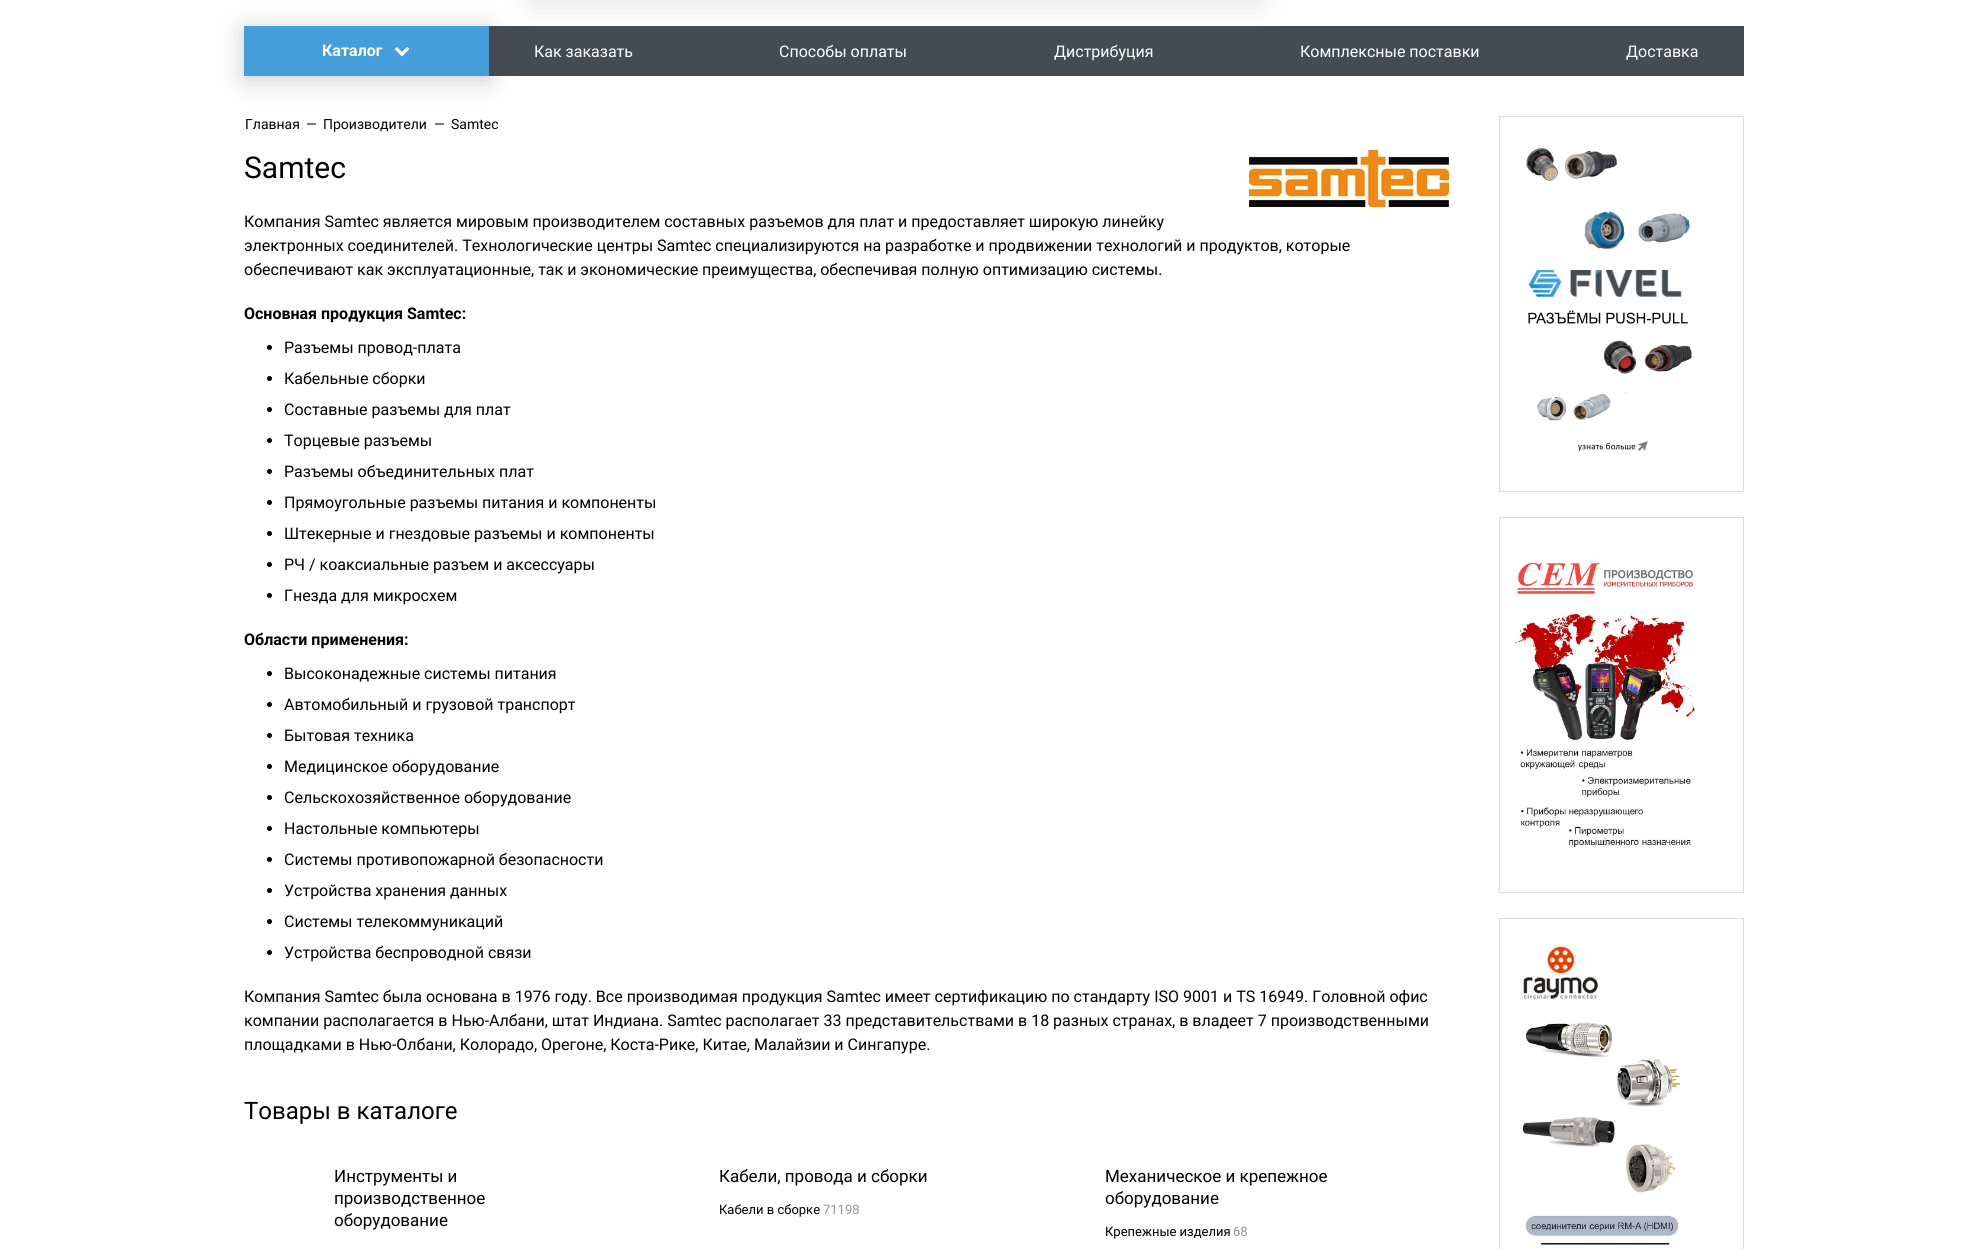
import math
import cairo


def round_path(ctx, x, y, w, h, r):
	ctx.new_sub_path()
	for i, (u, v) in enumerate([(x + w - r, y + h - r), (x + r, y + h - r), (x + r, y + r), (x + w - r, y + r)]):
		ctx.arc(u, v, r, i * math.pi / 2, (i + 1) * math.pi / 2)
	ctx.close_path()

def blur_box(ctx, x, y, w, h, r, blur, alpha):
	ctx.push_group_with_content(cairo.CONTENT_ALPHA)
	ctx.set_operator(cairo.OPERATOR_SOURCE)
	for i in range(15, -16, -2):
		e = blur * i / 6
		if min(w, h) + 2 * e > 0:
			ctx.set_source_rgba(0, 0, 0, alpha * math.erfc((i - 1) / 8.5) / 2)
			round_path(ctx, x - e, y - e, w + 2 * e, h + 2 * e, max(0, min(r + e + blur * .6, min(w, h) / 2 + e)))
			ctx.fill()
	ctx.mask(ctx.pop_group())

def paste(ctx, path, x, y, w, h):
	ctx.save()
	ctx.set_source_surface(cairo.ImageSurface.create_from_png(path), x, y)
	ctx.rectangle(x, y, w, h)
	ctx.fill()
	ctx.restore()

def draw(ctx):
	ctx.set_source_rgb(1, 1, 1)
	ctx.paint()
	ctx.set_source_rgb(0, 0, 0)
	blur_box(ctx, 244, 30, 245, 50, 0, 13, 0.2)
	ctx.set_source_rgb(0.267, 0.298, 0.318)
	ctx.rectangle(489, 26, 1255, 50)
	ctx.fill()
	ctx.set_source_rgb(0.667, 0.667, 0.667)
	blur_box(ctx, 534, -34, 725, 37, 0, 14, 0.37)
	ctx.set_source_rgb(0.271, 0.62, 0.843)
	ctx.rectangle(244, 26, 245, 50)
	ctx.fill()
	ctx.select_font_face('Roboto', cairo.FONT_SLANT_NORMAL, cairo.FONT_WEIGHT_BOLD)
	ctx.set_font_size(16)
	ctx.set_source_rgb(1, 1, 1)
	ctx.move_to(322, 56)
	ctx.show_text('Каталог')
	paste(ctx, 'media/1.png', 394, 47, 16, 10)
	ctx.select_font_face('Roboto')
	for x, y, s in [
		(534, 57, 'Как заказать'),
		(779, 57, 'Способы оплаты'),
		(1054, 57, 'Дистрибуция'),
		(1300, 57, 'Комплексные поставки'),
		(1626, 57, 'Доставка'),
	]:
		ctx.move_to(x, y)
		ctx.show_text(s)
	ctx.set_font_size(14)
	ctx.set_source_rgb(0, 0, 0)
	for x, y, s in [
		(245, 129, 'Главная'),
		(306, 129, '—'),
		(323, 129, 'Производители'),
		(434, 129, '—'),
		(451, 129, 'Samtec'),
	]:
		ctx.move_to(x, y)
		ctx.show_text(s)
	ctx.set_font_size(30)
	ctx.move_to(244, 178)
	ctx.show_text('Samtec')
	paste(ctx, 'media/2.png', 1249, 150, 200, 57)
	ctx.set_font_size(16)
	for x, y, s in [
		(244, 227, 'Компания Samtec является мировым производителем составных разъемов для плат и предоставляет широкую линейку'),
		(244, 251, 'электронных соединителей. Технологические центры Samtec специализируются на разработке и продвижении технологий и продуктов, которые'),
		(244, 275, 'обеспечивают как эксплуатационные, так и экономические преимущества, обеспечивая полную оптимизацию системы.'),
	]:
		ctx.move_to(x, y)
		ctx.show_text(s)
	ctx.select_font_face('Roboto', cairo.FONT_SLANT_NORMAL, cairo.FONT_WEIGHT_BOLD)
	ctx.move_to(244, 319)
	ctx.show_text('Основная продукция Samtec:')
	ctx.new_path()
	ctx.arc(269.5, 347.5, 2.5, 0, 2 * math.pi)
	ctx.fill()
	ctx.select_font_face('Roboto')
	ctx.move_to(284, 353)
	ctx.show_text('Разъемы провод-плата')
	ctx.new_path()
	ctx.arc(269.5, 378.5, 2.5, 0, 2 * math.pi)
	ctx.fill()
	ctx.move_to(284, 384)
	ctx.show_text('Кабельные сборки')
	ctx.new_path()
	ctx.arc(269.5, 409.5, 2.5, 0, 2 * math.pi)
	ctx.fill()
	ctx.move_to(284, 415)
	ctx.show_text('Составные разъемы для плат')
	ctx.new_path()
	ctx.arc(269.5, 440.5, 2.5, 0, 2 * math.pi)
	ctx.fill()
	ctx.move_to(284, 446)
	ctx.show_text('Торцевые разъемы')
	ctx.new_path()
	ctx.arc(269.5, 471.5, 2.5, 0, 2 * math.pi)
	ctx.fill()
	ctx.move_to(284, 477)
	ctx.show_text('Разъемы объединительных плат')
	ctx.new_path()
	ctx.arc(269.5, 502.5, 2.5, 0, 2 * math.pi)
	ctx.fill()
	ctx.move_to(284, 508)
	ctx.show_text('Прямоугольные разъемы питания и компоненты')
	ctx.new_path()
	ctx.arc(269.5, 533.5, 2.5, 0, 2 * math.pi)
	ctx.fill()
	ctx.move_to(284, 539)
	ctx.show_text('Штекерные и гнездовые разъемы и компоненты')
	ctx.new_path()
	ctx.arc(269.5, 564.5, 2.5, 0, 2 * math.pi)
	ctx.fill()
	ctx.move_to(284, 570)
	ctx.show_text('РЧ / коаксиальные разъем и аксессуары')
	ctx.new_path()
	ctx.arc(269.5, 595.5, 2.5, 0, 2 * math.pi)
	ctx.fill()
	ctx.move_to(284, 601)
	ctx.show_text('Гнезда для микросхем')
	ctx.select_font_face('Roboto', cairo.FONT_SLANT_NORMAL, cairo.FONT_WEIGHT_BOLD)
	ctx.move_to(244, 645)
	ctx.show_text('Области применения:')
	ctx.new_path()
	ctx.arc(269.5, 673.5, 2.5, 0, 2 * math.pi)
	ctx.fill()
	ctx.select_font_face('Roboto')
	ctx.move_to(284, 679)
	ctx.show_text('Высоконадежные системы питания')
	ctx.new_path()
	ctx.arc(269.5, 704.5, 2.5, 0, 2 * math.pi)
	ctx.fill()
	ctx.move_to(284, 710)
	ctx.show_text('Автомобильный и грузовой транспорт')
	ctx.new_path()
	ctx.arc(269.5, 735.5, 2.5, 0, 2 * math.pi)
	ctx.fill()
	ctx.move_to(284, 741)
	ctx.show_text('Бытовая техника')
	ctx.new_path()
	ctx.arc(269.5, 766.5, 2.5, 0, 2 * math.pi)
	ctx.fill()
	ctx.move_to(284, 772)
	ctx.show_text('Медицинское оборудование')
	ctx.new_path()
	ctx.arc(269.5, 797.5, 2.5, 0, 2 * math.pi)
	ctx.fill()
	ctx.move_to(284, 803)
	ctx.show_text('Сельскохозяйственное оборудование')
	ctx.new_path()
	ctx.arc(269.5, 828.5, 2.5, 0, 2 * math.pi)
	ctx.fill()
	ctx.move_to(284, 834)
	ctx.show_text('Настольные компьютеры')
	ctx.new_path()
	ctx.arc(269.5, 859.5, 2.5, 0, 2 * math.pi)
	ctx.fill()
	ctx.move_to(284, 865)
	ctx.show_text('Системы противопожарной безопасности')
	ctx.new_path()
	ctx.arc(269.5, 890.5, 2.5, 0, 2 * math.pi)
	ctx.fill()
	ctx.move_to(284, 896)
	ctx.show_text('Устройства хранения данных')
	ctx.new_path()
	ctx.arc(269.5, 921.5, 2.5, 0, 2 * math.pi)
	ctx.fill()
	ctx.move_to(284, 927)
	ctx.show_text('Системы телекоммуникаций')
	ctx.new_path()
	ctx.arc(269.5, 952.5, 2.5, 0, 2 * math.pi)
	ctx.fill()
	for x, y, s in [
		(284, 958, 'Устройства беспроводной связи'),
		(244, 1002, 'Компания Samtec была основана в 1976 году. Все производимая продукция Samtec имеет сертификацию по стандарту ISO 9001 и TS 16949. Головной офис'),
		(244, 1026, 'компании располагается в Нью-Албани, штат Индиана. Samtec располагает 33 представительствами в 18 разных странах, в владеет 7 производственными'),
		(244, 1050, 'площадками в Нью-Олбани, Колорадо, Орегоне, Коста-Рике, Китае, Малайзии и Сингапуре.'),
	]:
		ctx.move_to(x, y)
		ctx.show_text(s)
	ctx.set_font_size(24)
	ctx.move_to(244, 1119)
	ctx.show_text('Товары в каталоге')
	ctx.set_font_size(17)
	for x, y, s in [
		(334, 1182, 'Инструменты и'),
		(334, 1204, 'производственное'),
		(334, 1226, 'оборудование'),
		(719, 1182, 'Кабели, провода и сборки'),
	]:
		ctx.move_to(x, y)
		ctx.show_text(s)
	ctx.set_font_size(13)
	ctx.move_to(719, 1214)
	ctx.show_text('Кабели в сборке')
	ctx.set_source_rgb(0.584, 0.584, 0.584)
	ctx.move_to(823, 1214)
	ctx.show_text('71198')
	ctx.set_font_size(17)
	ctx.set_source_rgb(0, 0, 0)
	ctx.move_to(1105, 1182)
	ctx.show_text('Механическое и крепежное')
	ctx.move_to(1105, 1204)
	ctx.show_text('оборудование')
	ctx.set_font_size(13)
	ctx.move_to(1105, 1236)
	ctx.show_text('Крепежные изделия')
	ctx.set_source_rgb(0.584, 0.584, 0.584)
	ctx.move_to(1233, 1236)
	ctx.show_text('68')
	ctx.rectangle(1499.5, 116.5, 244, 375)
	ctx.set_source_rgb(0.863, 0.863, 0.863)
	ctx.set_line_width(1)
	ctx.stroke()
	paste(ctx, 'media/3.png', 1526, 148, 166, 303)
	ctx.rectangle(1499.5, 517.5, 244, 375)
	ctx.stroke()
	paste(ctx, 'media/4.png', 1515, 562, 180, 285)
	ctx.rectangle(1499.5, 918.5, 244, 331)
	ctx.stroke()
	paste(ctx, 'media/5.png', 1522, 945, 159, 301)


surface = cairo.ImageSurface(cairo.FORMAT_RGB24, 1987, 1249)
ctx = cairo.Context(surface)
options = cairo.FontOptions()
options.set_hint_metrics(cairo.HINT_METRICS_OFF)
options.set_hint_style(cairo.HINT_STYLE_NONE)
ctx.set_font_options(options)
ctx.set_miter_limit(4)
draw(ctx)
surface.write_to_png('image.png')
